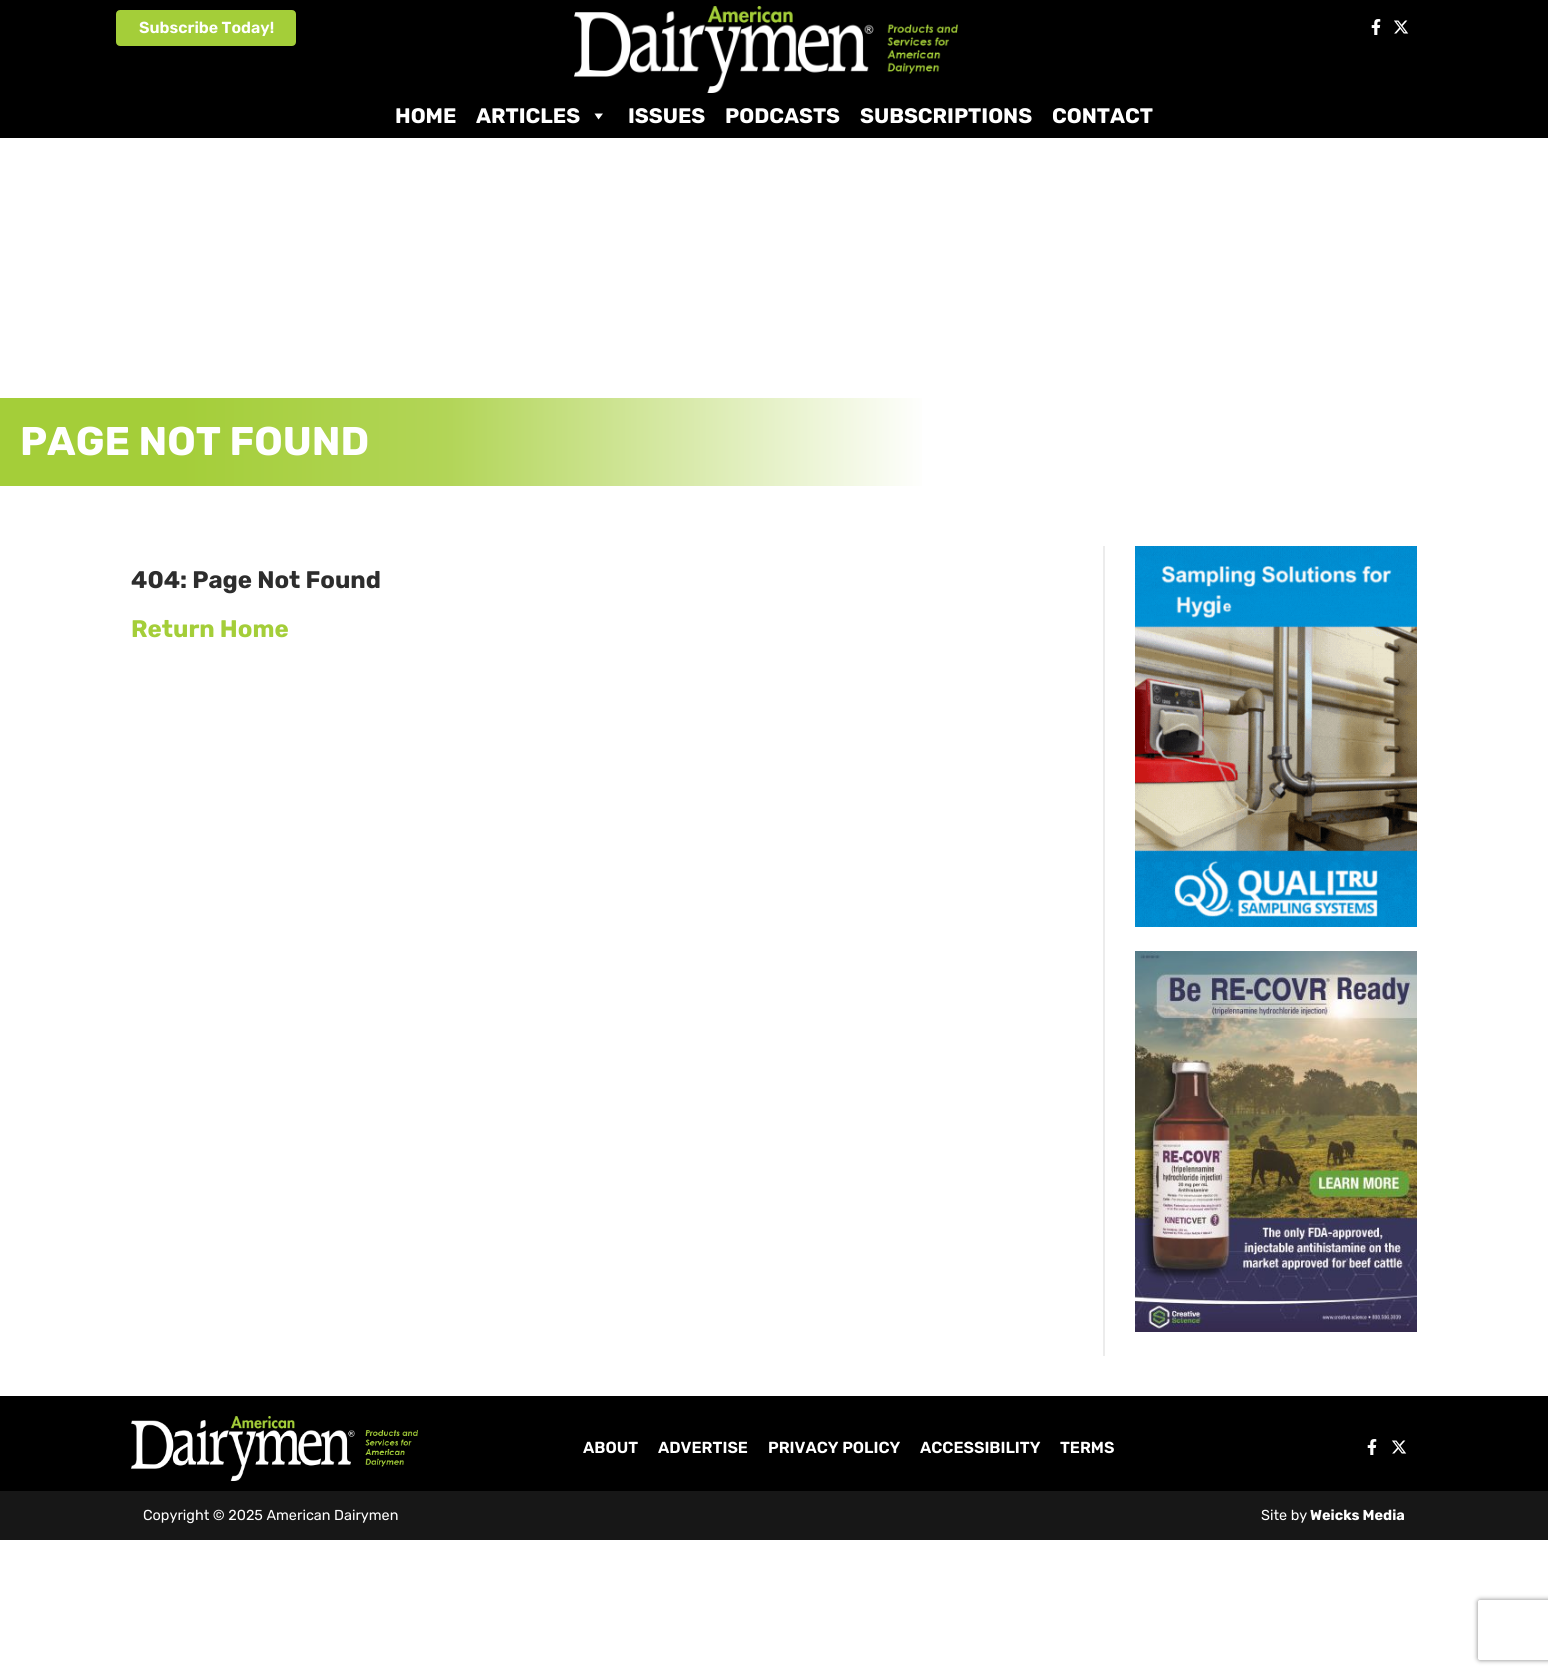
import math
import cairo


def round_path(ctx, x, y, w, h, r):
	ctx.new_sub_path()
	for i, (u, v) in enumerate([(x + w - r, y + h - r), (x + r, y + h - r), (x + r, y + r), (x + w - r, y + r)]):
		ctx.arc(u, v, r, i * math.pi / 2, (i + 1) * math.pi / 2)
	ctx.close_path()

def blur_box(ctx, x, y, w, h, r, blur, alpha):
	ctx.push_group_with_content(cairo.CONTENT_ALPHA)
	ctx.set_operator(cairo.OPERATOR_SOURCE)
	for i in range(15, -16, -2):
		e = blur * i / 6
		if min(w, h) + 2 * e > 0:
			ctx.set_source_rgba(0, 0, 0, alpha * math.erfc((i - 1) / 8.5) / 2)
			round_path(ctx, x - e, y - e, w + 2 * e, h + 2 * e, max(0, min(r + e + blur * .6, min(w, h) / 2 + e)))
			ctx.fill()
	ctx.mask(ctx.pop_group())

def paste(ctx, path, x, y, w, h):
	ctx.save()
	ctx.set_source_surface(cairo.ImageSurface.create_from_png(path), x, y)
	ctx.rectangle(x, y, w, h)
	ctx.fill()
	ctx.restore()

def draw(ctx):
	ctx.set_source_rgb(1, 1, 1)
	ctx.paint()
	ctx.set_source_rgb(0, 0, 0)
	ctx.rectangle(0, 0, 1548, 138)
	ctx.fill()
	ctx.set_source_rgb(0.643, 0.808, 0.224)
	round_path(ctx, 117, 11, 178, 34, 3)
	ctx.fill_preserve()
	ctx.stroke()
	ctx.select_font_face('Rubik SemiBold')
	ctx.set_font_size(16)
	ctx.set_source_rgb(1, 1, 1)
	ctx.move_to(139, 33)
	ctx.show_text('Subscribe Today!')
	paste(ctx, 'media/1.png', 1371, 19, 10, 16)
	paste(ctx, 'media/2.png', 1394, 20, 15, 14)
	paste(ctx, 'media/3.png', 574, 6, 384, 87)
	ctx.select_font_face('Rubik', cairo.FONT_SLANT_NORMAL, cairo.FONT_WEIGHT_BOLD)
	ctx.set_font_size(21)
	ctx.move_to(395, 123)
	ctx.show_text('HOME')
	ctx.move_to(476, 123)
	ctx.show_text('ARTICLES')
	ctx.new_path()
	ctx.move_to(603, 113.5)
	ctx.line_to(598.5, 119.5)
	ctx.line_to(594.5, 113.5)
	ctx.close_path()
	ctx.fill()
	for x, y, s in [
		(628, 123, 'ISSUES'),
		(725, 123, 'PODCASTS'),
		(860, 123, 'SUBSCRIPTIONS'),
		(1052, 123, 'CONTACT'),
	]:
		ctx.move_to(x, y)
		ctx.show_text(s)
	gradient = cairo.LinearGradient(0, 442, 929, 442)
	gradient.add_color_stop_rgba(0, 0.643, 0.808, 0.224, 1)
	gradient.add_color_stop_rgba(0.19, 0.643, 0.808, 0.224, 1)
	gradient.add_color_stop_rgba(0.48, 0.698, 0.835, 0.341, 1)
	gradient.add_color_stop_rgba(1, 1, 1, 1, 1)
	ctx.set_source(gradient)
	ctx.rectangle(0, 398, 922, 88)
	ctx.fill()
	ctx.set_font_size(40)
	ctx.set_source_rgb(1, 1, 1)
	ctx.move_to(20, 455)
	ctx.show_text('PAGE NOT FOUND')
	ctx.set_font_size(24)
	ctx.set_source_rgb(0.176, 0.176, 0.176)
	ctx.move_to(131, 588)
	ctx.show_text('404: Page Not Found')
	ctx.set_source_rgb(0.643, 0.808, 0.224)
	ctx.move_to(131, 637)
	ctx.show_text('Return Home')
	ctx.set_source_rgb(0.925, 0.925, 0.925)
	ctx.rectangle(1103, 546, 2, 810)
	ctx.fill()
	paste(ctx, 'media/4.png', 1135, 546, 282, 381)
	paste(ctx, 'media/5.png', 1135, 951, 282, 381)
	ctx.set_source_rgb(0, 0, 0)
	ctx.rectangle(0, 1396, 1548, 95)
	ctx.fill()
	paste(ctx, 'media/6.png', 131, 1416, 287, 65)
	ctx.select_font_face('Rubik SemiBold')
	ctx.set_font_size(16)
	ctx.set_source_rgb(1, 1, 1)
	for x, y, s in [
		(583, 1453, 'ABOUT'),
		(658, 1453, 'ADVERTISE'),
		(768, 1453, 'PRIVACY POLICY'),
		(920, 1453, 'ACCESSIBILITY'),
		(1060, 1453, 'TERMS'),
	]:
		ctx.move_to(x, y)
		ctx.show_text(s)
	paste(ctx, 'media/1.png', 1367, 1439, 10, 16)
	paste(ctx, 'media/2.png', 1392, 1440, 15, 14)
	ctx.set_source_rgb(0.09, 0.09, 0.09)
	ctx.rectangle(0, 1491, 1548, 49)
	ctx.fill()
	ctx.select_font_face('Rubik')
	ctx.set_font_size(14.4)
	ctx.set_source_rgb(1, 1, 1)
	ctx.move_to(143, 1520)
	ctx.show_text('Copyright © 2025 American Dairymen')
	ctx.move_to(1261, 1520)
	ctx.show_text('Site by')
	ctx.select_font_face('Rubik', cairo.FONT_SLANT_NORMAL, cairo.FONT_WEIGHT_BOLD)
	ctx.move_to(1310, 1520)
	ctx.show_text('Weicks Media')
	ctx.save()
	ctx.set_fill_rule(cairo.FILL_RULE_EVEN_ODD)
	ctx.new_path()
	ctx.move_to(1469, 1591)
	ctx.line_to(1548, 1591)
	ctx.line_to(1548, 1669)
	ctx.line_to(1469, 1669)
	ctx.close_path()
	ctx.move_to(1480, 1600)
	ctx.line_to(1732, 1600)
	ctx.curve_to(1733, 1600, 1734, 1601, 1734, 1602)
	ctx.line_to(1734, 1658)
	ctx.curve_to(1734, 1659, 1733, 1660, 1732, 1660)
	ctx.line_to(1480, 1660)
	ctx.curve_to(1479, 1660, 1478, 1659, 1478, 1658)
	ctx.line_to(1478, 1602)
	ctx.curve_to(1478, 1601, 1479, 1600, 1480, 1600)
	ctx.close_path()
	ctx.clip()
	ctx.set_source_rgb(0.502, 0.502, 0.502)
	blur_box(ctx, 1478, 1600, 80, 60, 2, 2.5, 1)
	ctx.restore()


surface = cairo.ImageSurface(cairo.FORMAT_RGB24, 1548, 1674)
ctx = cairo.Context(surface)
options = cairo.FontOptions()
options.set_hint_metrics(cairo.HINT_METRICS_OFF)
options.set_hint_style(cairo.HINT_STYLE_NONE)
ctx.set_font_options(options)
ctx.set_miter_limit(4)
draw(ctx)
surface.write_to_png('image.png')
